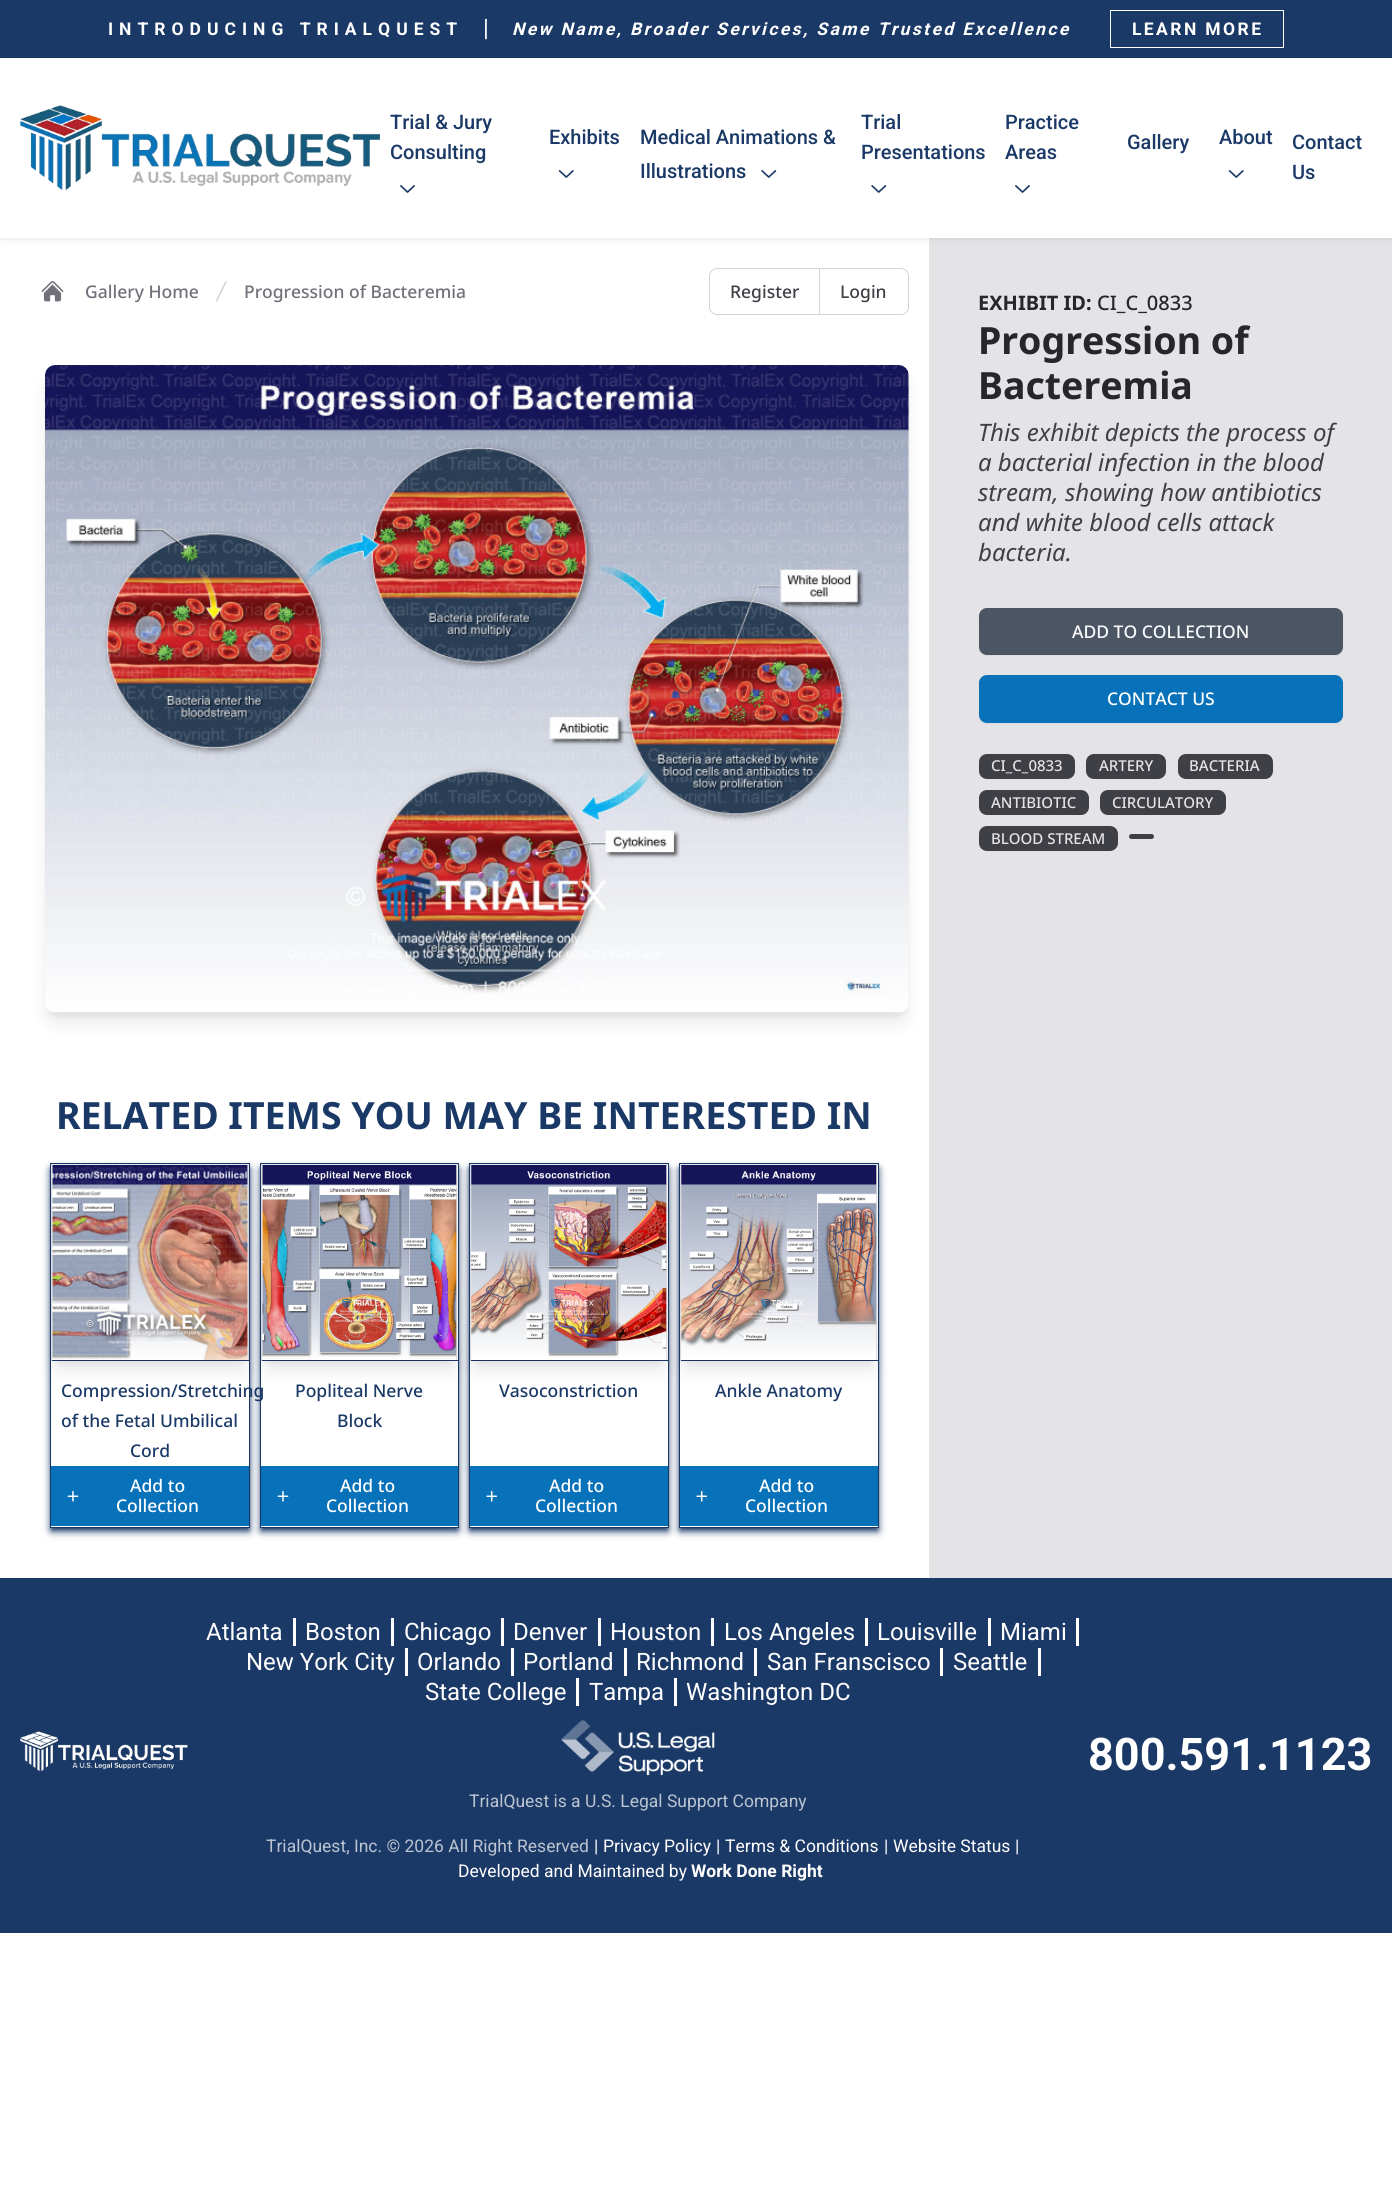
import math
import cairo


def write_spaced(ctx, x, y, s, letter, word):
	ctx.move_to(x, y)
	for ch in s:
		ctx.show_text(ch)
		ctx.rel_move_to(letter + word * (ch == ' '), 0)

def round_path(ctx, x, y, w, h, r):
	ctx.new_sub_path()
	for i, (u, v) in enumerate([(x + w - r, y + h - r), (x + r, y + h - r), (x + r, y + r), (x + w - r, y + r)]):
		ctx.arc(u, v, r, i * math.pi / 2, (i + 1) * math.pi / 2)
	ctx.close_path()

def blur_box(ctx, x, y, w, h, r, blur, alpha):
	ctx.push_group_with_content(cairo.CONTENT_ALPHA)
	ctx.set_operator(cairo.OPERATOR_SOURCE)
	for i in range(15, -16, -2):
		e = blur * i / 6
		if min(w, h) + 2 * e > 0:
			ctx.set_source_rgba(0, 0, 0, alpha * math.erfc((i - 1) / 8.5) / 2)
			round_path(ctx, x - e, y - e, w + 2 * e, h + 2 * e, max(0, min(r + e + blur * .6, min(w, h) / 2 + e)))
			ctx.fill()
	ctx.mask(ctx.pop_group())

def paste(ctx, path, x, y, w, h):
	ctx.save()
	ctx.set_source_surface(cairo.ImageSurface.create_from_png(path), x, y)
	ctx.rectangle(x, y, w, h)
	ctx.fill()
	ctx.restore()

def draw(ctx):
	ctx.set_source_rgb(1, 1, 1)
	ctx.paint()
	ctx.set_source_rgb(0, 0, 0)
	blur_box(ctx, 49, 381, 856, 640, 6, 9.5, 0.1)
	ctx.set_source_rgb(0.894, 0.894, 0.906)
	ctx.rectangle(929, 238, 463, 1340)
	ctx.fill()
	ctx.set_source_rgb(0, 0, 0)
	blur_box(ctx, 0, -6, 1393, 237, 0, 6, 0.5)
	ctx.set_source_rgb(1, 1, 1)
	ctx.rectangle(0, 58, 1392, 180)
	ctx.fill()
	ctx.set_source_rgb(0.106, 0.224, 0.404)
	ctx.rectangle(0, 0, 1392, 58)
	ctx.fill()
	ctx.select_font_face('Roboto', cairo.FONT_SLANT_NORMAL, cairo.FONT_WEIGHT_BOLD)
	ctx.set_font_size(17.5)
	ctx.set_source_rgb(1, 1, 1)
	write_spaced(ctx, 108, 35, 'INTRODUCING TRIALQUEST', 6, 0)
	ctx.select_font_face('Roboto')
	ctx.set_font_size(24)
	write_spaced(ctx, 483, 36, '|', 2.4, 0)
	ctx.select_font_face('Roboto', cairo.FONT_SLANT_ITALIC, cairo.FONT_WEIGHT_BOLD)
	ctx.set_font_size(17.5)
	write_spaced(ctx, 512, 35, 'New Name, Broader Services, Same Trusted Excellence', 2.4, 0)
	ctx.rectangle(1110.5, 10.5, 173, 37)
	ctx.set_line_width(1)
	ctx.stroke()
	ctx.select_font_face('Roboto', cairo.FONT_SLANT_NORMAL, cairo.FONT_WEIGHT_BOLD)
	write_spaced(ctx, 1132, 35, 'LEARN MORE', 2.4, 0)
	paste(ctx, 'media/1.png', 20, 105, 360, 85)
	ctx.select_font_face('Roboto Medium')
	ctx.set_font_size(20)
	ctx.set_source_rgb(0.106, 0.224, 0.404)
	ctx.move_to(390, 129)
	ctx.show_text('Trial & Jury')
	ctx.move_to(390, 159)
	ctx.show_text('Consulting')
	paste(ctx, 'media/2.png', 400, 185, 15, 8)
	ctx.move_to(549, 144)
	ctx.show_text('Exhibits')
	paste(ctx, 'media/3.png', 558, 170, 16, 8)
	ctx.move_to(640, 144)
	ctx.show_text('Medical Animations &')
	ctx.move_to(640, 178)
	ctx.show_text('Illustrations')
	paste(ctx, 'media/4.png', 761, 170, 16, 8)
	ctx.move_to(861, 129)
	ctx.show_text('Trial')
	ctx.move_to(861, 159)
	ctx.show_text('Presentations')
	paste(ctx, 'media/4.png', 871, 185, 16, 8)
	ctx.move_to(1005, 129)
	ctx.show_text('Practice')
	ctx.move_to(1005, 159)
	ctx.show_text('Areas')
	paste(ctx, 'media/2.png', 1015, 185, 15, 8)
	ctx.move_to(1127, 149)
	ctx.show_text('Gallery')
	ctx.move_to(1219, 144)
	ctx.show_text('About')
	paste(ctx, 'media/3.png', 1228, 170, 16, 8)
	ctx.move_to(1292, 149)
	ctx.show_text('Contact')
	ctx.move_to(1292, 179)
	ctx.show_text('Us')
	paste(ctx, 'media/5.png', 41, 281, 23, 21)
	ctx.select_font_face('Noto Sans Medium')
	ctx.set_font_size(17.5)
	ctx.set_source_rgb(0.443, 0.443, 0.478)
	ctx.move_to(85, 298)
	ctx.show_text('Gallery Home')
	ctx.set_source_rgb(0.82, 0.835, 0.859)
	ctx.new_path()
	ctx.move_to(215.5, 301)
	ctx.line_to(225.5, 281)
	ctx.line_to(227, 281.5)
	ctx.line_to(217, 301.5)
	ctx.close_path()
	ctx.fill()
	ctx.set_source_rgb(0.443, 0.443, 0.478)
	ctx.move_to(244, 298)
	ctx.show_text('Progression of Bacteremia')
	ctx.new_path()
	ctx.move_to(717, 268.5)
	ctx.line_to(819.5, 268.5)
	ctx.line_to(819.5, 314.5)
	ctx.line_to(717, 314.5)
	ctx.curve_to(713, 314.5, 709.5, 311, 709.5, 307)
	ctx.line_to(709.5, 276)
	ctx.curve_to(709.5, 272, 713, 268.5, 717, 268.5)
	ctx.close_path()
	ctx.set_source_rgb(0.831, 0.831, 0.847)
	ctx.stroke()
	ctx.set_source_rgb(0.247, 0.247, 0.275)
	ctx.move_to(730, 298)
	ctx.show_text('Register')
	ctx.set_source_rgb(1, 1, 1)
	ctx.new_path()
	ctx.move_to(819.5, 268.5)
	ctx.line_to(901, 268.5)
	ctx.curve_to(905, 268.5, 908.5, 272, 908.5, 276)
	ctx.line_to(908.5, 307)
	ctx.curve_to(908.5, 311, 905, 314.5, 901, 314.5)
	ctx.line_to(819.5, 314.5)
	ctx.close_path()
	ctx.fill_preserve()
	ctx.set_source_rgb(0.831, 0.831, 0.847)
	ctx.stroke()
	ctx.set_source_rgb(0.247, 0.247, 0.275)
	ctx.move_to(840, 298)
	ctx.show_text('Login')
	ctx.set_source_rgb(0, 0, 0)
	blur_box(ctx, 50, 375, 854, 638, 5, 4, 0.1)
	paste(ctx, 'media/6.png', 45, 365, 864, 648)
	ctx.select_font_face('Noto Sans', cairo.FONT_SLANT_NORMAL, cairo.FONT_WEIGHT_BOLD)
	ctx.set_font_size(37.5)
	ctx.set_source_rgb(0.106, 0.224, 0.404)
	ctx.move_to(56, 1129)
	ctx.show_text('RELATED ITEMS YOU MAY BE INTERESTED IN')
	ctx.save()
	ctx.set_fill_rule(cairo.FILL_RULE_EVEN_ODD)
	ctx.new_path()
	ctx.move_to(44, 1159)
	ctx.line_to(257, 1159)
	ctx.line_to(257, 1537)
	ctx.line_to(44, 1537)
	ctx.close_path()
	ctx.move_to(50, 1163)
	ctx.line_to(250, 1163)
	ctx.line_to(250, 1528)
	ctx.line_to(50, 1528)
	ctx.close_path()
	ctx.clip()
	ctx.set_source_rgb(0.106, 0.224, 0.404)
	blur_box(ctx, 53, 1168, 195, 360, 0, 2.5, 1)
	ctx.restore()
	ctx.save()
	ctx.set_fill_rule(cairo.FILL_RULE_EVEN_ODD)
	ctx.new_path()
	ctx.move_to(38, 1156)
	ctx.line_to(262, 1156)
	ctx.line_to(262, 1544)
	ctx.line_to(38, 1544)
	ctx.close_path()
	ctx.move_to(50, 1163)
	ctx.line_to(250, 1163)
	ctx.line_to(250, 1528)
	ctx.line_to(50, 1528)
	ctx.close_path()
	ctx.clip()
	ctx.set_source_rgb(0.106, 0.224, 0.404)
	blur_box(ctx, 51, 1169, 198, 362, 0, 4, 1)
	ctx.restore()
	ctx.rectangle(50.5, 1163.5, 199, 364)
	ctx.stroke()
	ctx.set_source_rgb(0.894, 0.894, 0.906)
	ctx.rectangle(51, 1164, 198, 1)
	ctx.rectangle(248, 1164, 1, 197)
	ctx.fill()
	ctx.set_source_rgb(0.106, 0.224, 0.404)
	ctx.rectangle(51, 1360, 198, 1)
	ctx.fill()
	ctx.set_source_rgb(0.894, 0.894, 0.906)
	ctx.rectangle(51, 1164, 1, 197)
	ctx.fill()
	ctx.set_source_rgb(0, 0, 0)
	blur_box(ctx, 58, 1175, 185, 185, 0, 4, 0.1)
	blur_box(ctx, 56, 1181, 188, 188, 0, 9.5, 0.1)
	paste(ctx, 'media/7.png', 52, 1165, 196, 195)
	ctx.select_font_face('Noto Sans Medium')
	ctx.set_font_size(17.5)
	ctx.set_source_rgb(0.106, 0.224, 0.404)
	for x, y, s in [
		(61, 1397, 'Compression/Stretching'),
		(61, 1427, 'of the Fetal Umbilical'),
		(130, 1457, 'Cord'),
	]:
		ctx.move_to(x, y)
		ctx.show_text(s)
	ctx.set_source_rgb(0.031, 0.443, 0.725)
	ctx.rectangle(51, 1466, 198, 60)
	ctx.fill()
	paste(ctx, 'media/8.png', 67, 1491, 12, 11)
	ctx.set_source_rgb(1, 1, 1)
	ctx.move_to(130, 1492)
	ctx.show_text('Add to')
	ctx.move_to(116, 1512)
	ctx.show_text('Collection')
	ctx.save()
	ctx.set_fill_rule(cairo.FILL_RULE_EVEN_ODD)
	ctx.new_path()
	ctx.move_to(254, 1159)
	ctx.line_to(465, 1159)
	ctx.line_to(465, 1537)
	ctx.line_to(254, 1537)
	ctx.close_path()
	ctx.move_to(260, 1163)
	ctx.line_to(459, 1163)
	ctx.line_to(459, 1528)
	ctx.line_to(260, 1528)
	ctx.close_path()
	ctx.clip()
	ctx.set_source_rgb(0.106, 0.224, 0.404)
	blur_box(ctx, 263, 1168, 193, 360, 0, 2.5, 1)
	ctx.restore()
	ctx.save()
	ctx.set_fill_rule(cairo.FILL_RULE_EVEN_ODD)
	ctx.new_path()
	ctx.move_to(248, 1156)
	ctx.line_to(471, 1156)
	ctx.line_to(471, 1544)
	ctx.line_to(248, 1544)
	ctx.close_path()
	ctx.move_to(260, 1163)
	ctx.line_to(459, 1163)
	ctx.line_to(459, 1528)
	ctx.line_to(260, 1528)
	ctx.close_path()
	ctx.clip()
	ctx.set_source_rgb(0.106, 0.224, 0.404)
	blur_box(ctx, 261, 1169, 197, 362, 0, 4, 1)
	ctx.restore()
	ctx.rectangle(260.5, 1163.5, 198, 364)
	ctx.set_source_rgb(0.106, 0.224, 0.404)
	ctx.stroke()
	ctx.set_source_rgb(0.894, 0.894, 0.906)
	ctx.rectangle(261, 1164, 197, 1)
	ctx.rectangle(456, 1164, 1, 197)
	ctx.fill()
	ctx.set_source_rgb(0.106, 0.224, 0.404)
	ctx.rectangle(261, 1360, 197, 1)
	ctx.fill()
	ctx.set_source_rgb(0.894, 0.894, 0.906)
	ctx.rectangle(261, 1164, 1, 197)
	ctx.fill()
	ctx.set_source_rgb(0, 0, 0)
	blur_box(ctx, 268, 1175, 183, 185, 0, 4, 0.1)
	blur_box(ctx, 266, 1181, 187, 188, 0, 9.5, 0.1)
	paste(ctx, 'media/9.png', 262, 1165, 195, 195)
	ctx.set_source_rgb(0.106, 0.224, 0.404)
	ctx.move_to(295, 1397)
	ctx.show_text('Popliteal Nerve')
	ctx.move_to(337, 1427)
	ctx.show_text('Block')
	ctx.set_source_rgb(0.031, 0.443, 0.725)
	ctx.rectangle(261, 1466, 197, 60)
	ctx.fill()
	paste(ctx, 'media/8.png', 277, 1491, 12, 11)
	ctx.set_source_rgb(1, 1, 1)
	ctx.move_to(340, 1492)
	ctx.show_text('Add to')
	ctx.move_to(326, 1512)
	ctx.show_text('Collection')
	ctx.save()
	ctx.set_fill_rule(cairo.FILL_RULE_EVEN_ODD)
	ctx.new_path()
	ctx.move_to(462, 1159)
	ctx.line_to(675, 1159)
	ctx.line_to(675, 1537)
	ctx.line_to(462, 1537)
	ctx.close_path()
	ctx.move_to(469, 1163)
	ctx.line_to(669, 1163)
	ctx.line_to(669, 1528)
	ctx.line_to(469, 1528)
	ctx.close_path()
	ctx.clip()
	ctx.set_source_rgb(0.106, 0.224, 0.404)
	blur_box(ctx, 471, 1168, 195, 360, 0, 2.5, 1)
	ctx.restore()
	ctx.save()
	ctx.set_fill_rule(cairo.FILL_RULE_EVEN_ODD)
	ctx.new_path()
	ctx.move_to(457, 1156)
	ctx.line_to(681, 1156)
	ctx.line_to(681, 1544)
	ctx.line_to(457, 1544)
	ctx.close_path()
	ctx.move_to(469, 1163)
	ctx.line_to(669, 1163)
	ctx.line_to(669, 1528)
	ctx.line_to(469, 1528)
	ctx.close_path()
	ctx.clip()
	ctx.set_source_rgb(0.106, 0.224, 0.404)
	blur_box(ctx, 470, 1169, 198, 362, 0, 4, 1)
	ctx.restore()
	ctx.rectangle(469.5, 1163.5, 199, 364)
	ctx.set_source_rgb(0.106, 0.224, 0.404)
	ctx.stroke()
	ctx.set_source_rgb(0.894, 0.894, 0.906)
	ctx.rectangle(470, 1164, 198, 1)
	ctx.rectangle(666, 1164, 1, 197)
	ctx.fill()
	ctx.set_source_rgb(0.106, 0.224, 0.404)
	ctx.rectangle(470, 1360, 198, 1)
	ctx.fill()
	ctx.set_source_rgb(0.894, 0.894, 0.906)
	ctx.rectangle(470, 1164, 1, 197)
	ctx.fill()
	ctx.set_source_rgb(0, 0, 0)
	blur_box(ctx, 476, 1175, 185, 185, 0, 4, 0.1)
	blur_box(ctx, 475, 1181, 188, 188, 0, 9.5, 0.1)
	paste(ctx, 'media/10.png', 471, 1165, 196, 195)
	ctx.set_source_rgb(0.106, 0.224, 0.404)
	ctx.move_to(499, 1397)
	ctx.show_text('Vasoconstriction')
	ctx.set_source_rgb(0.031, 0.443, 0.725)
	ctx.rectangle(470, 1466, 198, 60)
	ctx.fill()
	paste(ctx, 'media/11.png', 486, 1490, 11, 12)
	ctx.set_source_rgb(1, 1, 1)
	ctx.move_to(549, 1492)
	ctx.show_text('Add to')
	ctx.move_to(535, 1512)
	ctx.show_text('Collection')
	ctx.save()
	ctx.set_fill_rule(cairo.FILL_RULE_EVEN_ODD)
	ctx.new_path()
	ctx.move_to(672, 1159)
	ctx.line_to(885, 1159)
	ctx.line_to(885, 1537)
	ctx.line_to(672, 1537)
	ctx.close_path()
	ctx.move_to(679, 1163)
	ctx.line_to(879, 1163)
	ctx.line_to(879, 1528)
	ctx.line_to(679, 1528)
	ctx.close_path()
	ctx.clip()
	ctx.set_source_rgb(0.106, 0.224, 0.404)
	blur_box(ctx, 681, 1168, 195, 360, 0, 2.5, 1)
	ctx.restore()
	ctx.save()
	ctx.set_fill_rule(cairo.FILL_RULE_EVEN_ODD)
	ctx.new_path()
	ctx.move_to(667, 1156)
	ctx.line_to(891, 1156)
	ctx.line_to(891, 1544)
	ctx.line_to(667, 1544)
	ctx.close_path()
	ctx.move_to(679, 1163)
	ctx.line_to(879, 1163)
	ctx.line_to(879, 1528)
	ctx.line_to(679, 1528)
	ctx.close_path()
	ctx.clip()
	ctx.set_source_rgb(0.106, 0.224, 0.404)
	blur_box(ctx, 680, 1169, 198, 362, 0, 4, 1)
	ctx.restore()
	ctx.rectangle(679.5, 1163.5, 199, 364)
	ctx.set_source_rgb(0.106, 0.224, 0.404)
	ctx.stroke()
	ctx.set_source_rgb(0.894, 0.894, 0.906)
	ctx.rectangle(680, 1164, 198, 1)
	ctx.rectangle(876, 1164, 1, 197)
	ctx.fill()
	ctx.set_source_rgb(0.106, 0.224, 0.404)
	ctx.rectangle(680, 1360, 198, 1)
	ctx.fill()
	ctx.set_source_rgb(0.894, 0.894, 0.906)
	ctx.rectangle(680, 1164, 1, 197)
	ctx.fill()
	ctx.set_source_rgb(0, 0, 0)
	blur_box(ctx, 686, 1175, 185, 185, 0, 4, 0.1)
	blur_box(ctx, 685, 1181, 188, 188, 0, 9.5, 0.1)
	paste(ctx, 'media/12.png', 681, 1165, 196, 195)
	ctx.set_source_rgb(0.106, 0.224, 0.404)
	ctx.move_to(715, 1397)
	ctx.show_text('Ankle Anatomy')
	ctx.set_source_rgb(0.031, 0.443, 0.725)
	ctx.rectangle(680, 1466, 198, 60)
	ctx.fill()
	paste(ctx, 'media/11.png', 696, 1490, 11, 12)
	ctx.set_source_rgb(1, 1, 1)
	ctx.move_to(759, 1492)
	ctx.show_text('Add to')
	ctx.move_to(745, 1512)
	ctx.show_text('Collection')
	ctx.select_font_face('Noto Sans', cairo.FONT_SLANT_NORMAL, cairo.FONT_WEIGHT_BOLD)
	ctx.set_font_size(20)
	ctx.set_source_rgb(0.153, 0.153, 0.165)
	ctx.move_to(978, 310)
	ctx.show_text('EXHIBIT ID:')
	ctx.select_font_face('Noto Sans Medium')
	ctx.move_to(1097, 310)
	ctx.show_text('CI_C_0833')
	ctx.select_font_face('Noto Sans', cairo.FONT_SLANT_NORMAL, cairo.FONT_WEIGHT_BOLD)
	ctx.set_font_size(37.5)
	ctx.move_to(978, 354)
	ctx.show_text('Progression of')
	ctx.move_to(978, 399)
	ctx.show_text('Bacteremia')
	ctx.select_font_face('Noto Sans', cairo.FONT_SLANT_ITALIC)
	ctx.set_font_size(24)
	ctx.set_source_rgb(0.247, 0.247, 0.275)
	for x, y, s in [
		(978, 441, 'This exhibit depicts the process of'),
		(978, 471, 'a bacterial infection in the blood'),
		(978, 501, 'stream, showing how antibiotics'),
		(978, 531, 'and white blood cells attack'),
		(978, 561, 'bacteria.'),
	]:
		ctx.move_to(x, y)
		ctx.show_text(s)
	ctx.set_source_rgb(0, 0, 0)
	blur_box(ctx, 979, 609, 364, 47, 8, 1, 0.05)
	ctx.set_source_rgb(0.294, 0.333, 0.388)
	round_path(ctx, 979, 608, 364, 47, 8)
	ctx.fill()
	ctx.select_font_face('Noto Sans Medium')
	ctx.set_font_size(17.5)
	ctx.set_source_rgb(0.976, 0.98, 0.984)
	ctx.move_to(1072, 638)
	ctx.show_text('ADD TO COLLECTION')
	ctx.set_source_rgb(0, 0, 0)
	blur_box(ctx, 979, 676, 364, 48, 8, 1, 0.05)
	ctx.set_source_rgb(0.031, 0.443, 0.725)
	round_path(ctx, 979, 675, 364, 48, 8)
	ctx.fill()
	ctx.set_source_rgb(1, 1, 1)
	ctx.move_to(1107, 705)
	ctx.show_text('CONTACT US')
	ctx.set_source_rgb(0.247, 0.247, 0.275)
	round_path(ctx, 979, 754, 96, 25, 8)
	ctx.fill()
	ctx.set_font_size(15)
	ctx.set_source_rgb(0.894, 0.894, 0.906)
	ctx.move_to(991, 771)
	ctx.show_text('CI_C_0833')
	ctx.set_source_rgb(0.247, 0.247, 0.275)
	round_path(ctx, 1086, 754, 80, 25, 8)
	ctx.fill()
	ctx.set_source_rgb(0.894, 0.894, 0.906)
	ctx.move_to(1099, 771)
	ctx.show_text('ARTERY')
	ctx.set_source_rgb(0.247, 0.247, 0.275)
	round_path(ctx, 1178, 754, 95, 25, 8)
	ctx.fill()
	ctx.set_source_rgb(0.894, 0.894, 0.906)
	ctx.move_to(1189, 771)
	ctx.show_text('BACTERIA')
	ctx.set_source_rgb(0.247, 0.247, 0.275)
	round_path(ctx, 979, 790, 110, 25, 8)
	ctx.fill()
	ctx.set_source_rgb(0.894, 0.894, 0.906)
	ctx.move_to(991, 808)
	ctx.show_text('ANTIBIOTIC')
	ctx.set_source_rgb(0.247, 0.247, 0.275)
	round_path(ctx, 1100, 790, 126, 25, 8)
	ctx.fill()
	ctx.set_source_rgb(0.894, 0.894, 0.906)
	ctx.move_to(1112, 808)
	ctx.show_text('CIRCULATORY')
	ctx.set_source_rgb(0.247, 0.247, 0.275)
	round_path(ctx, 979, 826, 139, 25, 8)
	ctx.fill()
	ctx.set_source_rgb(0.894, 0.894, 0.906)
	ctx.move_to(991, 844)
	ctx.show_text('BLOOD STREAM')
	ctx.set_source_rgb(0.247, 0.247, 0.275)
	round_path(ctx, 1129, 834, 25, 5, 2.5)
	ctx.fill()
	ctx.set_source_rgb(0.106, 0.224, 0.404)
	ctx.rectangle(0, 1578, 1392, 355)
	ctx.fill()
	paste(ctx, 'media/13.png', 20, 1731, 168, 41)
	ctx.select_font_face('Roboto')
	ctx.set_font_size(24)
	ctx.set_source_rgb(1, 1, 1)
	ctx.move_to(206, 1640)
	ctx.show_text('Atlanta')
	ctx.rectangle(293, 1618, 3, 28)
	ctx.fill()
	ctx.move_to(305, 1640)
	ctx.show_text('Boston')
	ctx.rectangle(391, 1618, 3, 28)
	ctx.fill()
	ctx.move_to(404, 1640)
	ctx.show_text('Chicago')
	ctx.rectangle(501, 1618, 3, 28)
	ctx.fill()
	ctx.move_to(513, 1640)
	ctx.show_text('Denver')
	ctx.rectangle(598, 1618, 3, 28)
	ctx.fill()
	ctx.move_to(610, 1640)
	ctx.show_text('Houston')
	ctx.rectangle(711, 1618, 3, 28)
	ctx.fill()
	ctx.move_to(724, 1640)
	ctx.show_text('Los Angeles')
	ctx.rectangle(865, 1618, 3, 28)
	ctx.fill()
	ctx.move_to(877, 1640)
	ctx.show_text('Louisville')
	ctx.rectangle(988, 1618, 3, 28)
	ctx.fill()
	ctx.move_to(1000, 1640)
	ctx.show_text('Miami')
	ctx.rectangle(1076, 1618, 3, 28)
	ctx.fill()
	ctx.move_to(246, 1670)
	ctx.show_text('New York City')
	ctx.rectangle(405, 1648, 3, 28)
	ctx.fill()
	ctx.move_to(417, 1670)
	ctx.show_text('Orlando')
	ctx.rectangle(511, 1648, 3, 28)
	ctx.fill()
	ctx.move_to(523, 1670)
	ctx.show_text('Portland')
	ctx.rectangle(624, 1648, 3, 28)
	ctx.fill()
	ctx.move_to(636, 1670)
	ctx.show_text('Richmond')
	ctx.rectangle(754, 1648, 3, 28)
	ctx.fill()
	ctx.move_to(767, 1670)
	ctx.show_text('San Franscisco')
	ctx.rectangle(940, 1648, 3, 28)
	ctx.fill()
	ctx.move_to(953, 1670)
	ctx.show_text('Seattle')
	ctx.rectangle(1038, 1648, 3, 28)
	ctx.fill()
	ctx.move_to(425, 1700)
	ctx.show_text('State College')
	ctx.rectangle(576, 1678, 3, 28)
	ctx.fill()
	ctx.move_to(589, 1700)
	ctx.show_text('Tampa')
	ctx.rectangle(674, 1678, 3, 28)
	ctx.fill()
	ctx.move_to(686, 1700)
	ctx.show_text('Washington DC')
	paste(ctx, 'media/14.png', 561, 1720, 154, 56)
	ctx.set_font_size(17.5)
	ctx.set_source_rgb(0.733, 0.769, 0.82)
	ctx.move_to(469, 1807)
	ctx.show_text('TrialQuest is a U.S. Legal Support Company')
	ctx.move_to(266, 1852)
	ctx.show_text('TrialQuest, Inc. © 2026 All Right Reserved')
	ctx.set_source_rgb(1, 1, 1)
	for x, y, s in [
		(594, 1852, '|'),
		(603, 1852, 'Privacy Policy'),
		(716, 1852, '|'),
		(725, 1852, 'Terms & Conditions'),
		(884, 1852, '|'),
		(893, 1852, 'Website Status'),
		(1015, 1852, '|'),
		(458, 1877, 'Developed and Maintained by'),
	]:
		ctx.move_to(x, y)
		ctx.show_text(s)
	ctx.select_font_face('Roboto', cairo.FONT_SLANT_NORMAL, cairo.FONT_WEIGHT_BOLD)
	ctx.move_to(691, 1877)
	ctx.show_text('Work Done Right')
	ctx.set_font_size(45)
	ctx.move_to(1088, 1770)
	ctx.show_text('800.591.1123')


surface = cairo.ImageSurface(cairo.FORMAT_RGB24, 1392, 2190)
ctx = cairo.Context(surface)
options = cairo.FontOptions()
options.set_hint_metrics(cairo.HINT_METRICS_OFF)
options.set_hint_style(cairo.HINT_STYLE_NONE)
ctx.set_font_options(options)
ctx.set_miter_limit(4)
draw(ctx)
surface.write_to_png('image.png')
